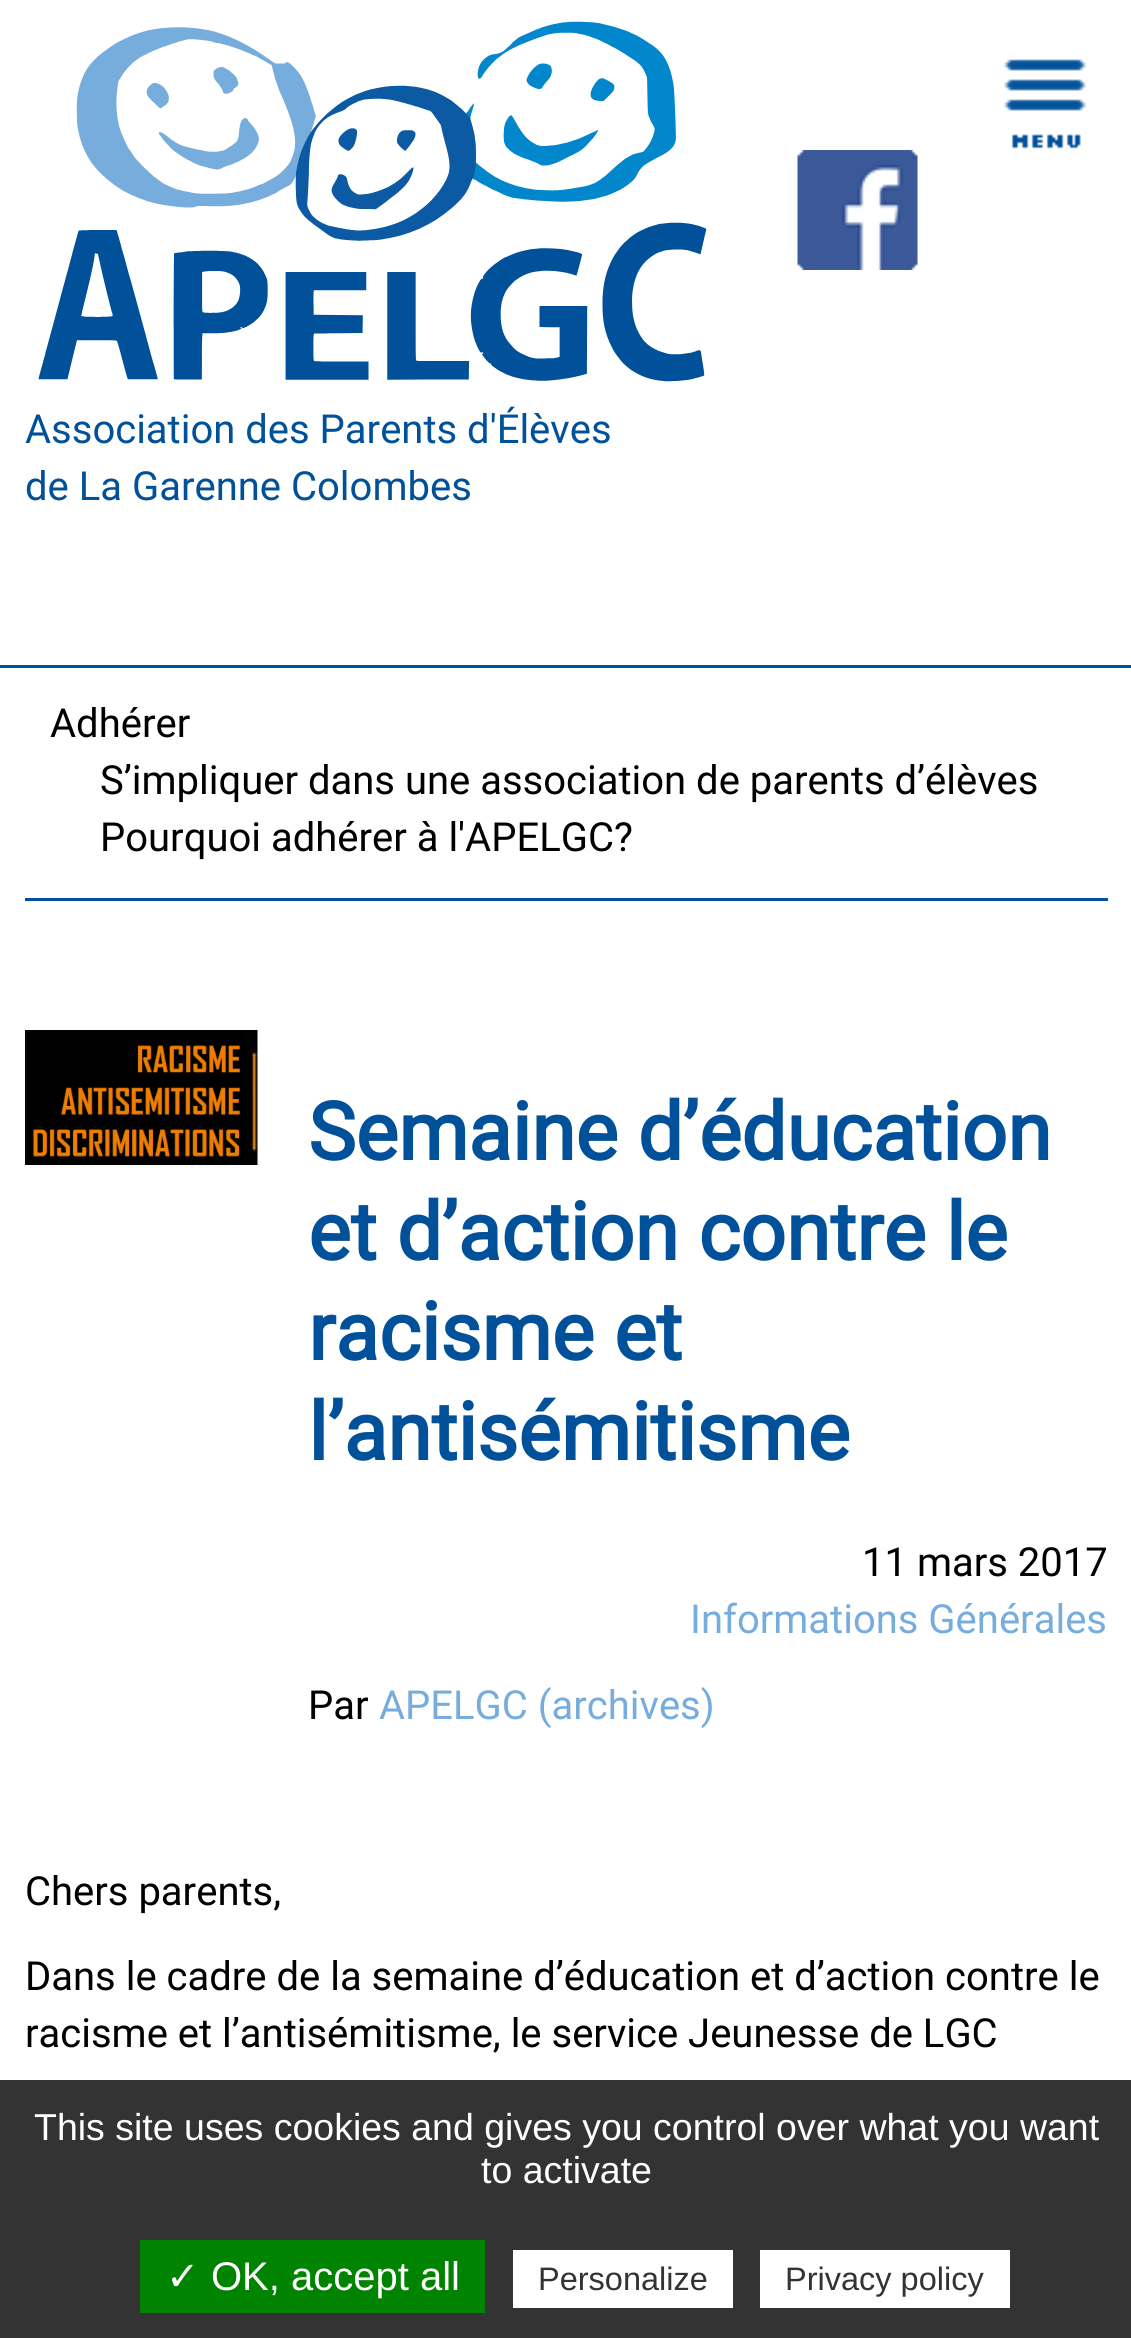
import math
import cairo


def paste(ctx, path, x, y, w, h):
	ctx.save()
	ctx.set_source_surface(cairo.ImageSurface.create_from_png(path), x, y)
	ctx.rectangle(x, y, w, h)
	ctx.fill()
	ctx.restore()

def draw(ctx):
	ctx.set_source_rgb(1, 1, 1)
	ctx.paint()
	ctx.set_source_rgb(0.004, 0.318, 0.604)
	ctx.rectangle(0, 665, 1131, 3)
	ctx.fill()
	paste(ctx, 'media/1.png', 38, 21, 669, 361)
	paste(ctx, 'media/2.png', 797, 150, 121, 120)
	paste(ctx, 'media/3.png', 1004, 59, 82, 90)
	ctx.select_font_face('Roboto')
	ctx.set_font_size(40)
	ctx.move_to(25, 443)
	ctx.show_text('Association des Parents d\'Élèves')
	ctx.move_to(25, 500)
	ctx.show_text('de La Garenne Colombes')
	ctx.rectangle(25, 898, 1083, 3)
	ctx.fill()
	ctx.set_source_rgb(0, 0, 0)
	for x, y, s in [
		(50, 737, 'Adhérer'),
		(100, 794, 'S’impliquer dans une association de parents d’élèves'),
		(100, 851, 'Pourquoi adhérer à l\'APELGC?'),
	]:
		ctx.move_to(x, y)
		ctx.show_text(s)
	paste(ctx, 'media/4.png', 25, 1030, 233, 135)
	ctx.select_font_face('Roboto', cairo.FONT_SLANT_NORMAL, cairo.FONT_WEIGHT_BOLD)
	ctx.set_font_size(80)
	ctx.set_source_rgb(0.004, 0.318, 0.604)
	for x, y, s in [
		(308, 1160, 'Semaine d’éducation'),
		(308, 1260, 'et d’action contre le'),
		(308, 1360, 'racisme et'),
		(308, 1460, 'l’antisémitisme'),
	]:
		ctx.move_to(x, y)
		ctx.show_text(s)
	ctx.select_font_face('Roboto')
	ctx.set_font_size(40)
	ctx.set_source_rgb(0, 0, 0)
	ctx.move_to(862, 1576)
	ctx.show_text('11 mars 2017')
	ctx.set_source_rgb(0.467, 0.678, 0.863)
	ctx.move_to(690, 1633)
	ctx.show_text('Informations Générales')
	ctx.set_source_rgb(0, 0, 0)
	ctx.move_to(308, 1719)
	ctx.show_text('Par')
	ctx.set_source_rgb(0.467, 0.678, 0.863)
	ctx.move_to(379, 1719)
	ctx.show_text('APELGC (archives)')
	ctx.set_source_rgb(0, 0, 0)
	for x, y, s in [
		(25, 1905, 'Chers parents,'),
		(25, 1990, 'Dans le cadre de la semaine d’éducation et d’action contre le'),
		(25, 2047, 'racisme et l’antisémitisme, le service Jeunesse de LGC'),
	]:
		ctx.move_to(x, y)
		ctx.show_text(s)
	ctx.set_source_rgb(0.2, 0.2, 0.2)
	ctx.rectangle(0, 2080, 1131, 258)
	ctx.fill()
	ctx.select_font_face('Liberation Sans')
	ctx.set_font_size(37.5)
	ctx.set_source_rgb(1, 1, 1)
	ctx.move_to(34, 2140)
	ctx.show_text('This site uses cookies and gives you control over what you want')
	ctx.move_to(481, 2183)
	ctx.show_text('to activate')
	ctx.set_source_rgb(0, 0.514, 0)
	ctx.rectangle(140, 2240, 345, 73)
	ctx.fill()
	ctx.select_font_face('DejaVu Sans')
	ctx.set_font_size(40)
	ctx.set_source_rgb(1, 1, 1)
	ctx.move_to(166, 2290)
	ctx.show_text('✓')
	ctx.select_font_face('Liberation Sans')
	ctx.move_to(211, 2290)
	ctx.show_text('OK, accept all')
	ctx.rectangle(513, 2250, 220, 58)
	ctx.fill()
	ctx.set_font_size(32.5)
	ctx.set_source_rgb(0.2, 0.2, 0.2)
	ctx.move_to(538, 2290)
	ctx.show_text('Personalize')
	ctx.set_source_rgb(1, 1, 1)
	ctx.rectangle(760, 2250, 250, 58)
	ctx.fill()
	ctx.set_source_rgb(0.2, 0.2, 0.2)
	ctx.move_to(785, 2290)
	ctx.show_text('Privacy policy')


surface = cairo.ImageSurface(cairo.FORMAT_RGB24, 1131, 2338)
ctx = cairo.Context(surface)
options = cairo.FontOptions()
options.set_hint_metrics(cairo.HINT_METRICS_OFF)
options.set_hint_style(cairo.HINT_STYLE_NONE)
ctx.set_font_options(options)
ctx.set_miter_limit(4)
draw(ctx)
surface.write_to_png('image.png')
